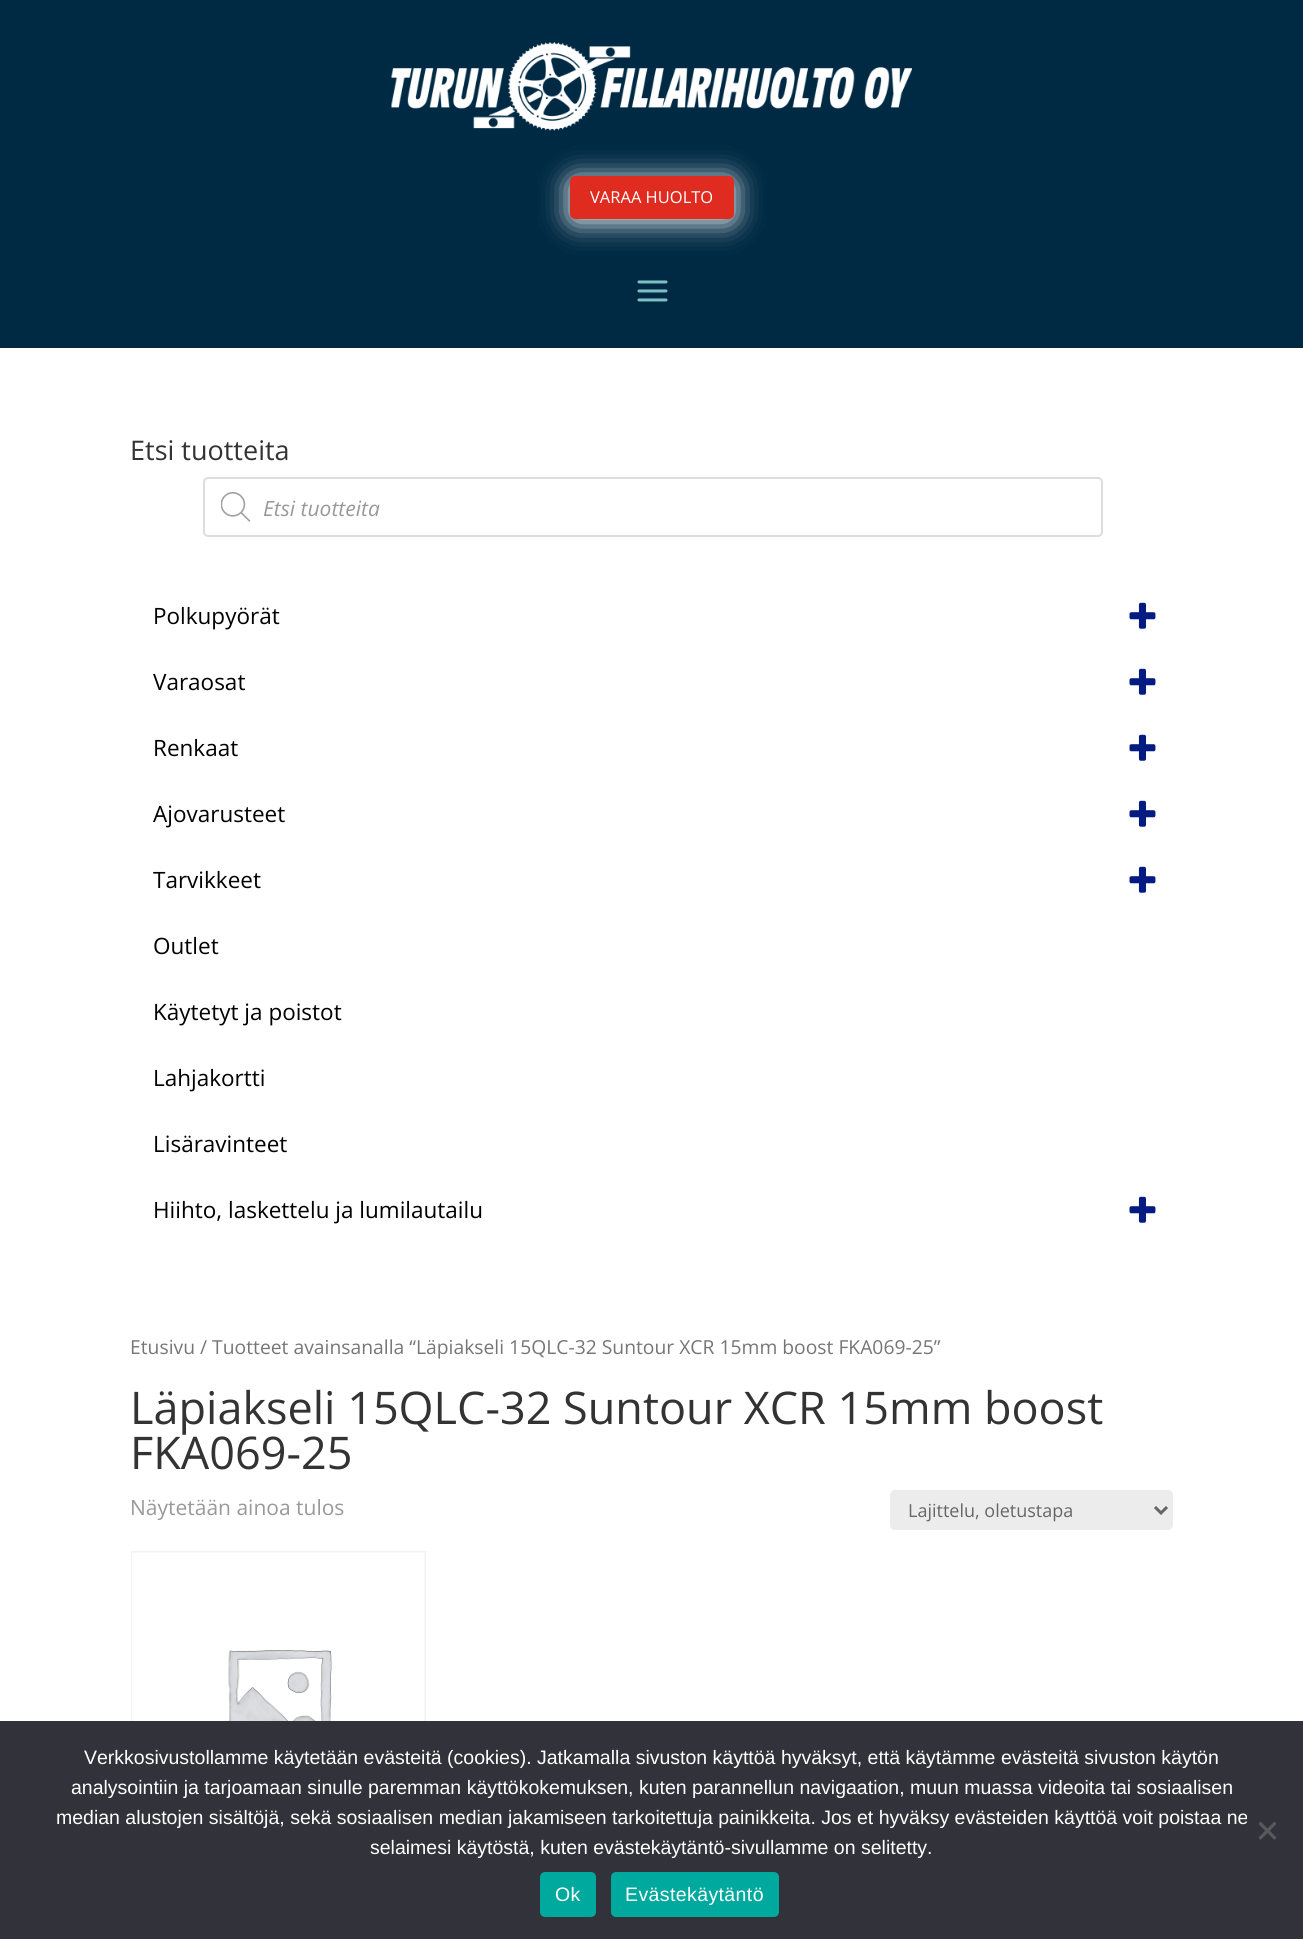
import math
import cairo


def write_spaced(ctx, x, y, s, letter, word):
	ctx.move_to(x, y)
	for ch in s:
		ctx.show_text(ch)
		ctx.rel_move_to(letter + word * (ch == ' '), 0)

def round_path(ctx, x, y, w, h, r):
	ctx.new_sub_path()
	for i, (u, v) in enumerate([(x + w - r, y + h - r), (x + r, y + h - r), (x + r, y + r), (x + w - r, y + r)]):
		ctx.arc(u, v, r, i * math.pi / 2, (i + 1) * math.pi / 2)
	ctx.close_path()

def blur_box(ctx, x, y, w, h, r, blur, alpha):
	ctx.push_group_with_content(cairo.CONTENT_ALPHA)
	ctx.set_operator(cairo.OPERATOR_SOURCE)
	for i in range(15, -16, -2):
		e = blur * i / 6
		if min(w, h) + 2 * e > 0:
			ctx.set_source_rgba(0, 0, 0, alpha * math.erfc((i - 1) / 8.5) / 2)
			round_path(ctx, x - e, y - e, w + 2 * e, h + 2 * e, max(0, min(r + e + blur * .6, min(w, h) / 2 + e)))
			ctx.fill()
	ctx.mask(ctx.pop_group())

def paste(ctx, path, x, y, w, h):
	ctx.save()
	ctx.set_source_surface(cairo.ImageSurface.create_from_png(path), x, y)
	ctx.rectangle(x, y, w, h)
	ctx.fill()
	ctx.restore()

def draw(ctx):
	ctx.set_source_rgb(1, 1, 1)
	ctx.paint()
	ctx.set_source_rgb(0, 0.165, 0.267)
	ctx.rectangle(0, 0, 1303, 348)
	ctx.fill()
	paste(ctx, 'media/1.png', 391, 42, 521, 89)
	ctx.set_source_rgb(1, 1, 1)
	blur_box(ctx, 570, 179, 164, 43, 5, 13.5, 1)
	ctx.set_source_rgb(0.878, 0.169, 0.125)
	round_path(ctx, 571.5, 177.5, 161, 40, 3.5)
	ctx.fill_preserve()
	ctx.set_line_width(3)
	ctx.stroke()
	ctx.select_font_face('Open Sans')
	ctx.set_font_size(16.5)
	ctx.set_source_rgb(1, 1, 1)
	ctx.move_to(590, 203)
	ctx.show_text('VARAA HUOLTO')
	paste(ctx, 'media/2.png', 637, 280, 31, 22)
	ctx.set_font_size(27)
	ctx.set_source_rgb(0.2, 0.2, 0.2)
	ctx.move_to(130, 460)
	ctx.show_text('Etsi tuotteita')
	round_path(ctx, 204, 478, 898, 58, 4)
	ctx.set_source_rgb(0.867, 0.867, 0.867)
	ctx.set_line_width(2)
	ctx.stroke()
	paste(ctx, 'media/3.png', 221, 492, 30, 30)
	ctx.select_font_face('Open Sans', cairo.FONT_SLANT_ITALIC)
	ctx.set_font_size(21)
	ctx.set_source_rgb(0.6, 0.6, 0.6)
	ctx.move_to(263, 516)
	ctx.show_text('Etsi tuotteita')
	ctx.select_font_face('Open Sans')
	ctx.set_font_size(22.5)
	ctx.set_source_rgb(0, 0, 0)
	ctx.move_to(153, 624)
	ctx.show_text('Polkupyörät')
	paste(ctx, 'media/4.png', 1129, 602, 27, 27)
	ctx.move_to(153, 690)
	ctx.show_text('Varaosat')
	paste(ctx, 'media/4.png', 1129, 668, 27, 27)
	ctx.move_to(153, 756)
	ctx.show_text('Renkaat')
	paste(ctx, 'media/4.png', 1129, 734, 27, 27)
	ctx.move_to(153, 822)
	ctx.show_text('Ajovarusteet')
	paste(ctx, 'media/4.png', 1129, 800, 27, 27)
	ctx.move_to(153, 888)
	ctx.show_text('Tarvikkeet')
	paste(ctx, 'media/4.png', 1129, 866, 27, 27)
	for x, y, s in [
		(153, 954, 'Outlet'),
		(153, 1020, 'Käytetyt ja poistot'),
		(153, 1086, 'Lahjakortti'),
		(153, 1152, 'Lisäravinteet'),
		(153, 1218, 'Hiihto, laskettelu ja lumilautailu'),
	]:
		ctx.move_to(x, y)
		ctx.show_text(s)
	paste(ctx, 'media/4.png', 1129, 1196, 27, 27)
	ctx.set_font_size(19.3)
	ctx.set_source_rgb(0.463, 0.463, 0.463)
	ctx.move_to(130, 1354)
	ctx.show_text('Etusivu / Tuotteet avainsanalla “Läpiakseli 15QLC-32 Suntour XCR 15mm boost FKA069-25”')
	ctx.set_font_size(45)
	ctx.set_source_rgb(0.2, 0.2, 0.2)
	ctx.move_to(130, 1424)
	ctx.show_text('Läpiakseli 15QLC-32 Suntour XCR 15mm boost')
	ctx.move_to(130, 1469)
	ctx.show_text('FKA069-25')
	ctx.set_font_size(21)
	ctx.set_source_rgb(0.6, 0.6, 0.6)
	ctx.move_to(130, 1515)
	ctx.show_text('Näytetään ainoa tulos')
	ctx.set_source_rgb(0.925, 0.925, 0.925)
	round_path(ctx, 890, 1490, 283, 40, 5)
	ctx.fill()
	ctx.new_path()
	ctx.move_to(1155, 1507)
	ctx.line_to(1161, 1513)
	ctx.line_to(1167, 1507)
	ctx.set_source_rgb(0.4, 0.4, 0.4)
	ctx.set_line_width(3)
	ctx.stroke()
	ctx.set_font_size(18)
	ctx.move_to(908, 1517)
	ctx.show_text('Lajittelu, oletustapa')
	ctx.rectangle(132, 1552, 293, 294)
	ctx.set_source_rgb(0.949, 0.949, 0.949)
	ctx.set_line_width(2)
	ctx.stroke()
	paste(ctx, 'media/5.png', 132, 1552, 293, 169)
	ctx.set_source_rgb(0.196, 0.196, 0.227)
	ctx.rectangle(0, 1721, 1303, 218)
	ctx.fill()
	ctx.select_font_face('Liberation Sans')
	ctx.set_font_size(19.5)
	ctx.set_source_rgb(1, 1, 1)
	for x, y, s in [
		(84, 1764, 'Verkkosivustollamme käytetään evästeitä (cookies). Jatkamalla sivuston käyttöä hyväksyt, että käytämme evästeitä sivuston käytön'),
		(71, 1794, 'analysointiin ja tarjoamaan sinulle paremman käyttökokemuksen, kuten parannellun navigaation, muun muassa videoita tai sosiaalisen'),
		(56, 1824, 'median alustojen sisältöjä, sekä sosiaalisen median jakamiseen tarkoitettuja painikkeita. Jos et hyväksy evästeiden käyttöä voit poistaa ne'),
		(370, 1854, 'selaimesi käytöstä, kuten evästekäytäntö-sivullamme on selitetty.'),
	]:
		ctx.move_to(x, y)
		ctx.show_text(s)
	ctx.set_source_rgb(0.349, 0.349, 0.365)
	ctx.new_path()
	ctx.move_to(1274.5, 1821.5)
	ctx.line_to(1276.5, 1824)
	ctx.line_to(1260.5, 1840)
	ctx.line_to(1258.5, 1837.5)
	ctx.close_path()
	ctx.fill()
	ctx.new_path()
	ctx.move_to(1258.5, 1824)
	ctx.line_to(1260.5, 1821.5)
	ctx.line_to(1276.5, 1837.5)
	ctx.line_to(1274.5, 1840)
	ctx.close_path()
	ctx.fill()
	ctx.set_source_rgb(0, 0.663, 0.616)
	round_path(ctx, 540, 1872, 56, 45, 5)
	ctx.fill()
	ctx.set_source_rgb(1, 1, 1)
	write_spaced(ctx, 555, 1901, 'Ok', 0.4, 0)
	ctx.set_source_rgb(0, 0.663, 0.616)
	round_path(ctx, 611, 1872, 168, 45, 5)
	ctx.fill()
	ctx.set_source_rgb(1, 1, 1)
	write_spaced(ctx, 625, 1901, 'Evästekäytäntö', 0.4, 0)


surface = cairo.ImageSurface(cairo.FORMAT_RGB24, 1303, 1939)
ctx = cairo.Context(surface)
options = cairo.FontOptions()
options.set_hint_metrics(cairo.HINT_METRICS_OFF)
options.set_hint_style(cairo.HINT_STYLE_NONE)
ctx.set_font_options(options)
ctx.set_miter_limit(4)
draw(ctx)
surface.write_to_png('image.png')
